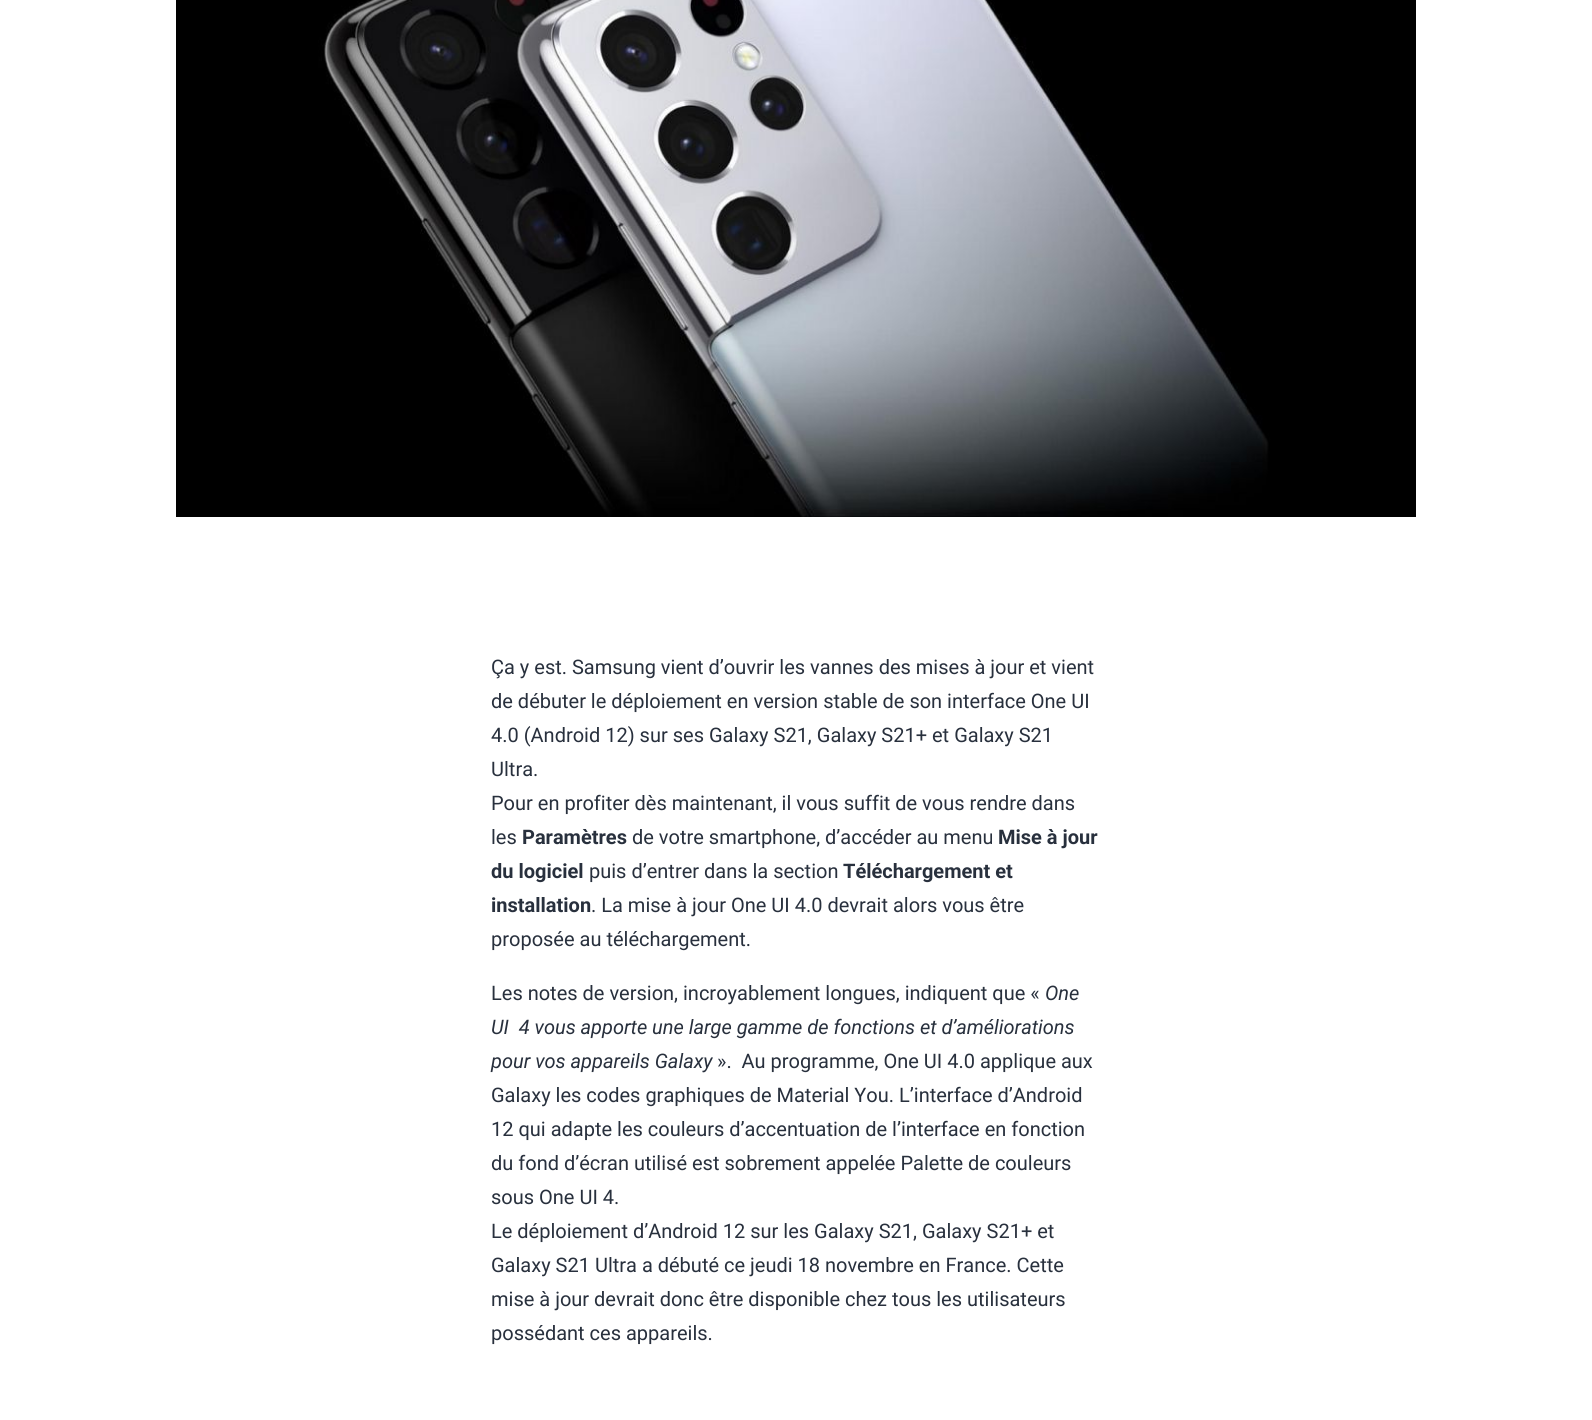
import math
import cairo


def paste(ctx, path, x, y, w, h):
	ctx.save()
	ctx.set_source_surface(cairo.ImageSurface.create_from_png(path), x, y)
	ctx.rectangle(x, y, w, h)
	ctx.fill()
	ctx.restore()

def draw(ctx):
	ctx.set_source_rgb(1, 1, 1)
	ctx.paint()
	paste(ctx, 'media/1.png', 176, 0, 1240, 517)
	ctx.select_font_face('Roboto')
	ctx.set_font_size(20)
	ctx.set_source_rgb(0.157, 0.188, 0.239)
	for x, y, s in [
		(491, 674, 'Ça y est. Samsung vient d’ouvrir les vannes des mises à jour et vient'),
		(491, 708, 'de débuter le déploiement en version stable de son interface One UI'),
		(491, 742, '4.0 (Android 12) sur ses Galaxy S21, Galaxy S21+ et Galaxy S21'),
		(491, 776, 'Ultra.'),
		(491, 810, 'Pour en profiter dès maintenant, il vous suffit de vous rendre dans'),
		(491, 844, 'les'),
	]:
		ctx.move_to(x, y)
		ctx.show_text(s)
	ctx.select_font_face('Roboto', cairo.FONT_SLANT_NORMAL, cairo.FONT_WEIGHT_BOLD)
	ctx.move_to(522, 844)
	ctx.show_text('Paramètres')
	ctx.select_font_face('Roboto')
	ctx.move_to(632, 844)
	ctx.show_text('de votre smartphone, d’accéder au menu')
	ctx.select_font_face('Roboto', cairo.FONT_SLANT_NORMAL, cairo.FONT_WEIGHT_BOLD)
	ctx.move_to(998, 844)
	ctx.show_text('Mise à jour')
	ctx.move_to(491, 878)
	ctx.show_text('du logiciel')
	ctx.select_font_face('Roboto')
	ctx.move_to(589, 878)
	ctx.show_text('puis d’entrer dans la section')
	ctx.select_font_face('Roboto', cairo.FONT_SLANT_NORMAL, cairo.FONT_WEIGHT_BOLD)
	ctx.move_to(843, 878)
	ctx.show_text('Téléchargement et')
	ctx.move_to(491, 912)
	ctx.show_text('installation')
	ctx.select_font_face('Roboto')
	for x, y, s in [
		(591, 912, '. La mise à jour One UI 4.0 devrait alors vous être'),
		(491, 946, 'proposée au téléchargement.'),
		(491, 1000, 'Les notes de version, incroyablement longues, indiquent que «'),
	]:
		ctx.move_to(x, y)
		ctx.show_text(s)
	ctx.select_font_face('Roboto', cairo.FONT_SLANT_ITALIC)
	for x, y, s in [
		(1045, 1000, 'One'),
		(491, 1034, 'UI  4 vous apporte une large gamme de fonctions et d’améliorations'),
		(491, 1068, 'pour vos appareils Galaxy'),
	]:
		ctx.move_to(x, y)
		ctx.show_text(s)
	ctx.select_font_face('Roboto')
	for x, y, s in [
		(717, 1068, '».  Au programme, One UI 4.0 applique aux'),
		(491, 1102, 'Galaxy les codes graphiques de Material You. L’interface d’Android'),
		(491, 1136, '12 qui adapte les couleurs d’accentuation de l’interface en fonction'),
		(491, 1170, 'du fond d’écran utilisé est sobrement appelée Palette de couleurs'),
		(491, 1204, 'sous One UI 4.'),
		(491, 1238, 'Le déploiement d’Android 12 sur les Galaxy S21, Galaxy S21+ et'),
		(491, 1272, 'Galaxy S21 Ultra a débuté ce jeudi 18 novembre en France. Cette'),
		(491, 1306, 'mise à jour devrait donc être disponible chez tous les utilisateurs'),
		(491, 1340, 'possédant ces appareils.'),
	]:
		ctx.move_to(x, y)
		ctx.show_text(s)


surface = cairo.ImageSurface(cairo.FORMAT_RGB24, 1592, 1420)
ctx = cairo.Context(surface)
options = cairo.FontOptions()
options.set_hint_metrics(cairo.HINT_METRICS_OFF)
options.set_hint_style(cairo.HINT_STYLE_NONE)
ctx.set_font_options(options)
ctx.set_miter_limit(4)
draw(ctx)
surface.write_to_png('image.png')
